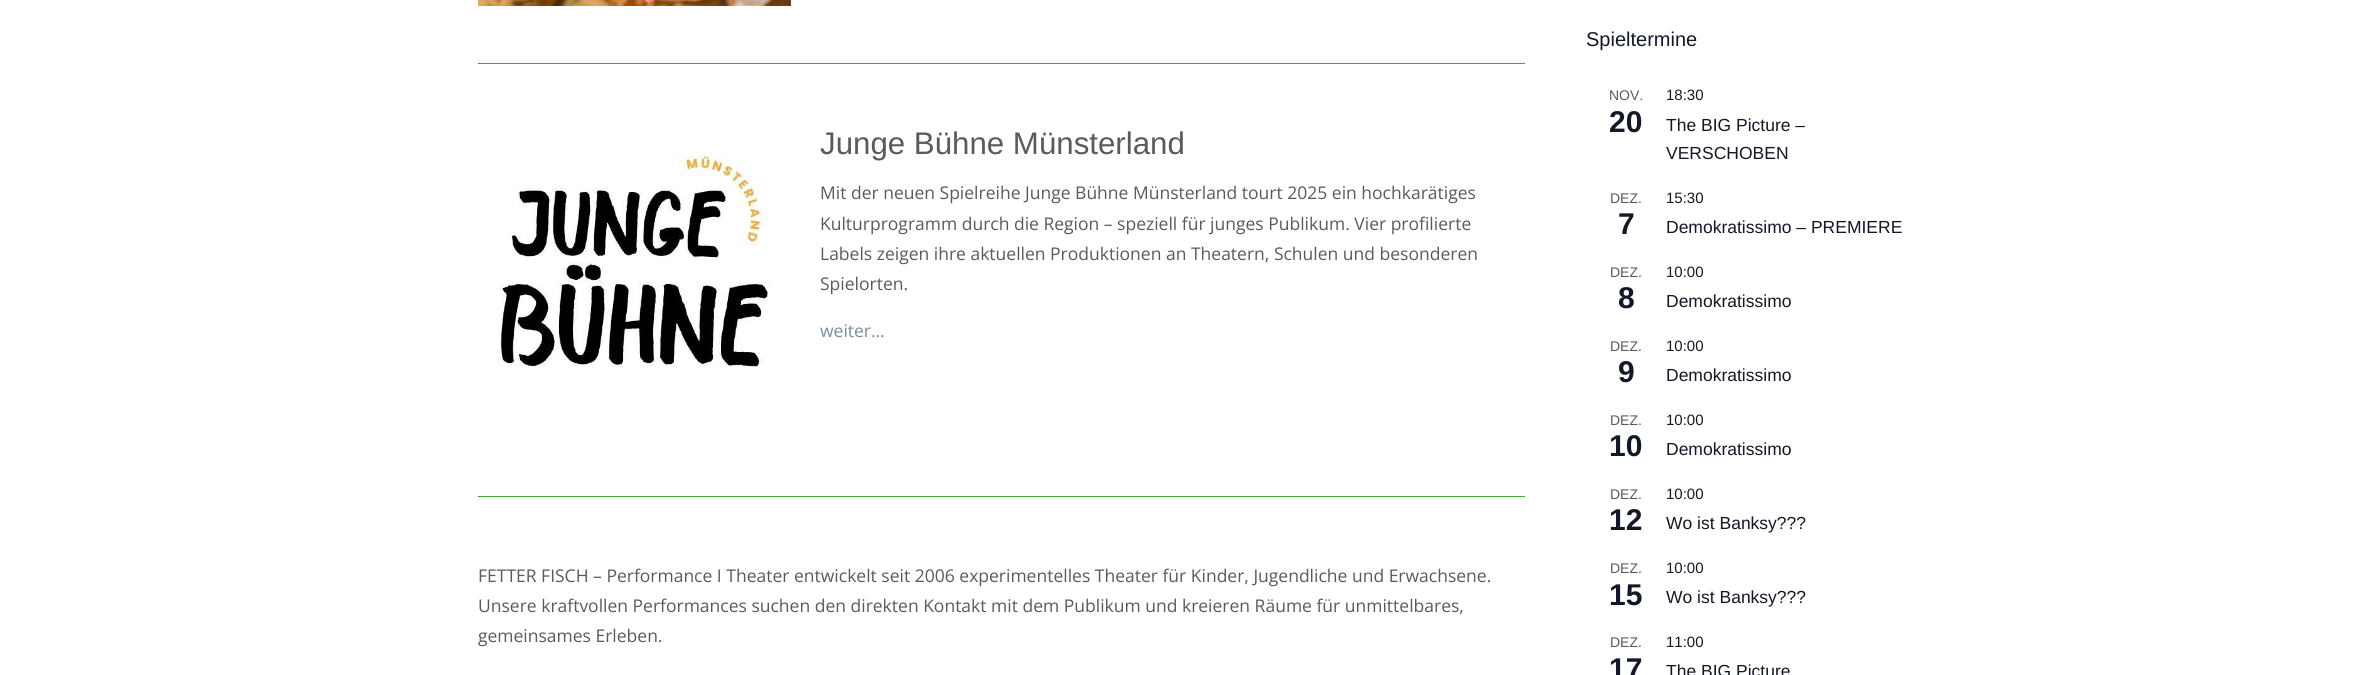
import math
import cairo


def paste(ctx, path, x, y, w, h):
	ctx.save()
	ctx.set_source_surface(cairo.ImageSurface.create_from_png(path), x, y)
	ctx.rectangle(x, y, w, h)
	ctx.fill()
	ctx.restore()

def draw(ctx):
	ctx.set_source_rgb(1, 1, 1)
	ctx.paint()
	ctx.set_source_rgb(0.255, 0.647, 0.208)
	ctx.rectangle(478, 63, 1047, 1)
	ctx.fill()
	paste(ctx, 'media/1.png', 478, 0, 313, 6)
	ctx.rectangle(478, 496, 1047, 1)
	ctx.fill()
	paste(ctx, 'media/2.png', 498, 155, 271, 212)
	ctx.select_font_face('Liberation Sans')
	ctx.set_font_size(31.25)
	ctx.set_source_rgb(0.353, 0.353, 0.353)
	ctx.move_to(820, 154)
	ctx.show_text('Junge Bühne Münsterland')
	ctx.select_font_face('Open Sans')
	ctx.set_font_size(17.5)
	for x, y, s in [
		(820, 199, 'Mit der neuen Spielreihe Junge Bühne Münsterland tourt 2025 ein hochkarätiges'),
		(820, 230, 'Kulturprogramm durch die Region – speziell für junges Publikum. Vier profilierte'),
		(820, 260, 'Labels zeigen ihre aktuellen Produktionen an Theatern, Schulen und besonderen'),
		(820, 290, 'Spielorten.'),
	]:
		ctx.move_to(x, y)
		ctx.show_text(s)
	ctx.set_source_rgb(0.471, 0.561, 0.596)
	ctx.move_to(820, 337)
	ctx.show_text('weiter…')
	ctx.set_source_rgb(0.353, 0.353, 0.353)
	for x, y, s in [
		(478, 582, 'FETTER FISCH – Performance I Theater entwickelt seit 2006 experimentelles Theater für Kinder, Jugendliche und Erwachsene.'),
		(478, 612, 'Unsere kraftvollen Performances suchen den direkten Kontakt mit dem Publikum und kreieren Räume für unmittelbares,'),
		(478, 642, 'gemeinsames Erleben.'),
	]:
		ctx.move_to(x, y)
		ctx.show_text(s)
	ctx.select_font_face('Liberation Sans')
	ctx.set_font_size(20)
	ctx.set_source_rgb(0.078, 0.094, 0.153)
	ctx.move_to(1586, 46)
	ctx.show_text('Spieltermine')
	ctx.set_font_size(14)
	ctx.set_source_rgb(0.353, 0.353, 0.353)
	ctx.move_to(1609, 100)
	ctx.show_text('NOV.')
	ctx.select_font_face('Liberation Sans', cairo.FONT_SLANT_NORMAL, cairo.FONT_WEIGHT_BOLD)
	ctx.set_font_size(30)
	ctx.set_source_rgb(0.078, 0.094, 0.153)
	ctx.move_to(1609, 132)
	ctx.show_text('20')
	ctx.select_font_face('Liberation Sans')
	ctx.set_font_size(15)
	ctx.move_to(1666, 100)
	ctx.show_text('18:30')
	ctx.set_font_size(17.5)
	ctx.move_to(1666, 131)
	ctx.show_text('The BIG Picture –')
	ctx.move_to(1666, 159)
	ctx.show_text('VERSCHOBEN')
	ctx.set_font_size(14)
	ctx.set_source_rgb(0.353, 0.353, 0.353)
	ctx.move_to(1610, 203)
	ctx.show_text('DEZ.')
	ctx.select_font_face('Liberation Sans', cairo.FONT_SLANT_NORMAL, cairo.FONT_WEIGHT_BOLD)
	ctx.set_font_size(30)
	ctx.set_source_rgb(0.078, 0.094, 0.153)
	ctx.move_to(1618, 234)
	ctx.show_text('7')
	ctx.select_font_face('Liberation Sans')
	ctx.set_font_size(15)
	ctx.move_to(1666, 203)
	ctx.show_text('15:30')
	ctx.set_font_size(17.5)
	ctx.move_to(1666, 233)
	ctx.show_text('Demokratissimo – PREMIERE')
	ctx.set_font_size(14)
	ctx.set_source_rgb(0.353, 0.353, 0.353)
	ctx.move_to(1610, 277)
	ctx.show_text('DEZ.')
	ctx.select_font_face('Liberation Sans', cairo.FONT_SLANT_NORMAL, cairo.FONT_WEIGHT_BOLD)
	ctx.set_font_size(30)
	ctx.set_source_rgb(0.078, 0.094, 0.153)
	ctx.move_to(1618, 308)
	ctx.show_text('8')
	ctx.select_font_face('Liberation Sans')
	ctx.set_font_size(15)
	ctx.move_to(1666, 277)
	ctx.show_text('10:00')
	ctx.set_font_size(17.5)
	ctx.move_to(1666, 307)
	ctx.show_text('Demokratissimo')
	ctx.set_font_size(14)
	ctx.set_source_rgb(0.353, 0.353, 0.353)
	ctx.move_to(1610, 351)
	ctx.show_text('DEZ.')
	ctx.select_font_face('Liberation Sans', cairo.FONT_SLANT_NORMAL, cairo.FONT_WEIGHT_BOLD)
	ctx.set_font_size(30)
	ctx.set_source_rgb(0.078, 0.094, 0.153)
	ctx.move_to(1618, 382)
	ctx.show_text('9')
	ctx.select_font_face('Liberation Sans')
	ctx.set_font_size(15)
	ctx.move_to(1666, 351)
	ctx.show_text('10:00')
	ctx.set_font_size(17.5)
	ctx.move_to(1666, 381)
	ctx.show_text('Demokratissimo')
	ctx.set_font_size(14)
	ctx.set_source_rgb(0.353, 0.353, 0.353)
	ctx.move_to(1610, 425)
	ctx.show_text('DEZ.')
	ctx.select_font_face('Liberation Sans', cairo.FONT_SLANT_NORMAL, cairo.FONT_WEIGHT_BOLD)
	ctx.set_font_size(30)
	ctx.set_source_rgb(0.078, 0.094, 0.153)
	ctx.move_to(1609, 456)
	ctx.show_text('10')
	ctx.select_font_face('Liberation Sans')
	ctx.set_font_size(15)
	ctx.move_to(1666, 425)
	ctx.show_text('10:00')
	ctx.set_font_size(17.5)
	ctx.move_to(1666, 455)
	ctx.show_text('Demokratissimo')
	ctx.set_font_size(14)
	ctx.set_source_rgb(0.353, 0.353, 0.353)
	ctx.move_to(1610, 499)
	ctx.show_text('DEZ.')
	ctx.select_font_face('Liberation Sans', cairo.FONT_SLANT_NORMAL, cairo.FONT_WEIGHT_BOLD)
	ctx.set_font_size(30)
	ctx.set_source_rgb(0.078, 0.094, 0.153)
	ctx.move_to(1609, 530)
	ctx.show_text('12')
	ctx.select_font_face('Liberation Sans')
	ctx.set_font_size(15)
	ctx.move_to(1666, 499)
	ctx.show_text('10:00')
	ctx.set_font_size(17.5)
	ctx.move_to(1666, 529)
	ctx.show_text('Wo ist Banksy???')
	ctx.set_font_size(14)
	ctx.set_source_rgb(0.353, 0.353, 0.353)
	ctx.move_to(1610, 573)
	ctx.show_text('DEZ.')
	ctx.select_font_face('Liberation Sans', cairo.FONT_SLANT_NORMAL, cairo.FONT_WEIGHT_BOLD)
	ctx.set_font_size(30)
	ctx.set_source_rgb(0.078, 0.094, 0.153)
	ctx.move_to(1609, 605)
	ctx.show_text('15')
	ctx.select_font_face('Liberation Sans')
	ctx.set_font_size(15)
	ctx.move_to(1666, 573)
	ctx.show_text('10:00')
	ctx.set_font_size(17.5)
	ctx.move_to(1666, 603)
	ctx.show_text('Wo ist Banksy???')
	ctx.set_font_size(14)
	ctx.set_source_rgb(0.353, 0.353, 0.353)
	ctx.move_to(1610, 647)
	ctx.show_text('DEZ.')
	ctx.select_font_face('Liberation Sans', cairo.FONT_SLANT_NORMAL, cairo.FONT_WEIGHT_BOLD)
	ctx.set_font_size(30)
	ctx.set_source_rgb(0.078, 0.094, 0.153)
	ctx.move_to(1609, 679)
	ctx.show_text('17')
	ctx.select_font_face('Liberation Sans')
	ctx.set_font_size(15)
	ctx.move_to(1666, 647)
	ctx.show_text('11:00')
	ctx.set_font_size(17.5)
	ctx.move_to(1666, 677)
	ctx.show_text('The BIG Picture')


surface = cairo.ImageSurface(cairo.FORMAT_RGB24, 2379, 675)
ctx = cairo.Context(surface)
options = cairo.FontOptions()
options.set_hint_metrics(cairo.HINT_METRICS_OFF)
options.set_hint_style(cairo.HINT_STYLE_NONE)
ctx.set_font_options(options)
ctx.set_miter_limit(4)
draw(ctx)
surface.write_to_png('image.png')
